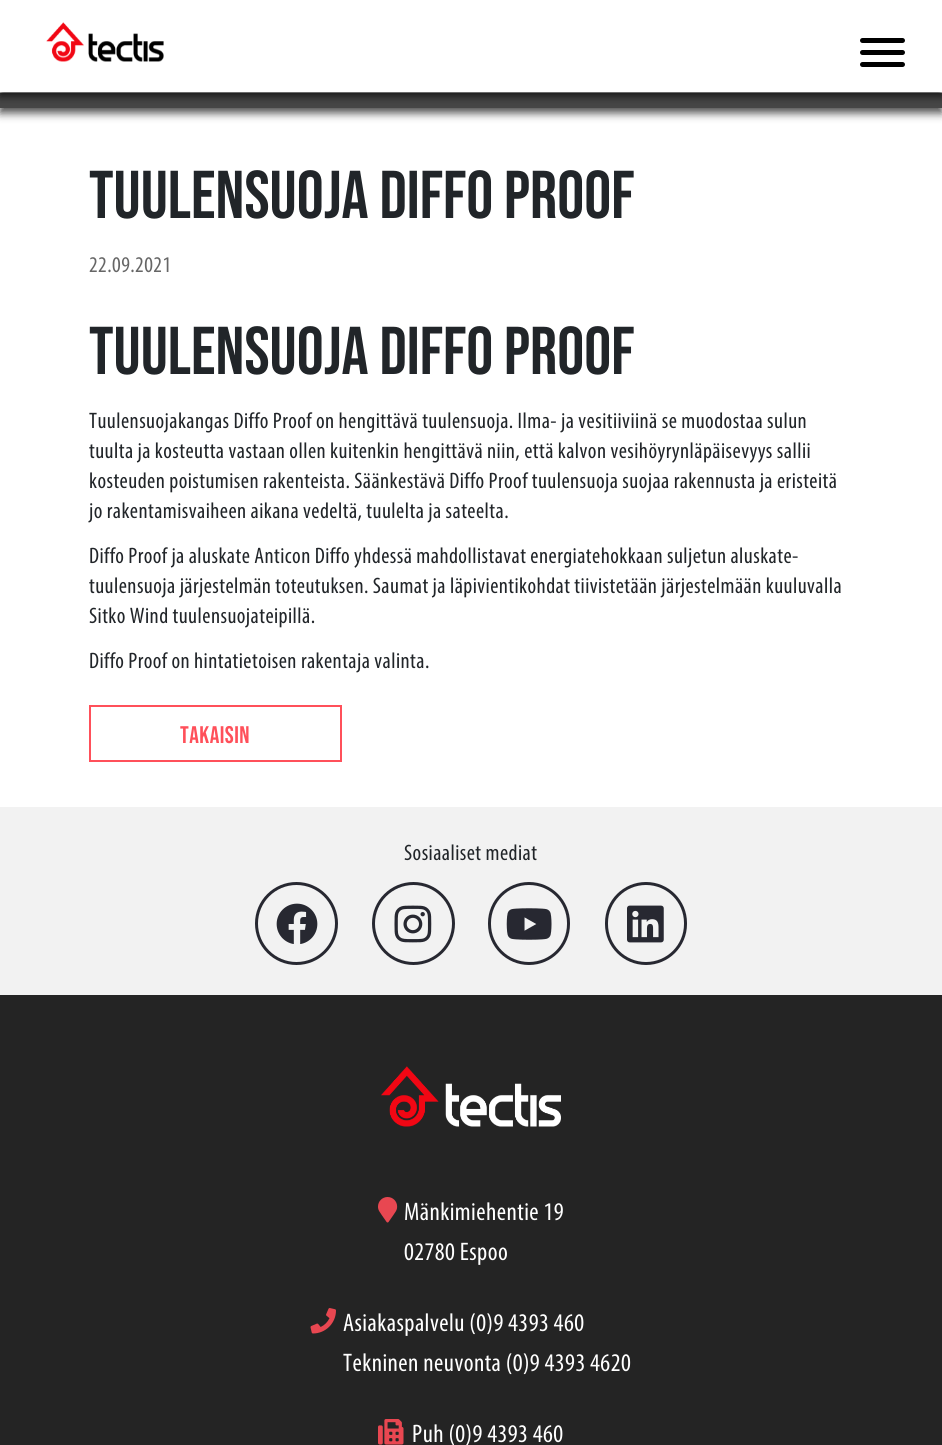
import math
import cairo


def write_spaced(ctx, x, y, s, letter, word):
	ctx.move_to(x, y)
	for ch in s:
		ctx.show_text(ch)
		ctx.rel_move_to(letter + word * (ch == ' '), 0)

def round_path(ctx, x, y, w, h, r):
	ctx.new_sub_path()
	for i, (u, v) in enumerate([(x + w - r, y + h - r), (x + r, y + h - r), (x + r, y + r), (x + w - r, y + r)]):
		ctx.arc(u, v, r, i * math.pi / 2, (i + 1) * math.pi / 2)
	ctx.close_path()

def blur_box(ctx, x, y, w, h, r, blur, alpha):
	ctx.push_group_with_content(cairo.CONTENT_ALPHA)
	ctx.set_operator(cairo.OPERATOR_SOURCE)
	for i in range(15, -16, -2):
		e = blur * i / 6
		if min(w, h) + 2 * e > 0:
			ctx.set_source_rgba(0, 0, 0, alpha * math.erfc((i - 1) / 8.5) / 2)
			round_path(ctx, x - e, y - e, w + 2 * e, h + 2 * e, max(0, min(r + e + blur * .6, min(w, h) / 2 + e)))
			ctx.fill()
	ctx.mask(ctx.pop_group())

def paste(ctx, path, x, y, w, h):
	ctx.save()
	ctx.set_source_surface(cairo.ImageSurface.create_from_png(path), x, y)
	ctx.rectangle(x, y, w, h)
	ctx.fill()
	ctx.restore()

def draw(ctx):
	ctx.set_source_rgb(1, 1, 1)
	ctx.paint()
	ctx.set_source_rgb(0, 0, 0)
	blur_box(ctx, 0, 98, 942, 15, 0, 4.5, 0.7)
	ctx.set_source_rgb(0.275, 0.275, 0.275)
	ctx.rectangle(0, 93, 942, 15)
	ctx.fill()
	ctx.set_source_rgb(0, 0, 0)
	blur_box(ctx, 0, 5, 942, 91, 0, 4.5, 0.7)
	ctx.set_source_rgb(1, 1, 1)
	ctx.rectangle(0, 0, 942, 92)
	ctx.fill()
	paste(ctx, 'media/1.png', 46, 22, 118, 40)
	ctx.set_source_rgb(0, 0, 0)
	round_path(ctx, 860, 38, 45, 5, 2.5)
	ctx.fill()
	round_path(ctx, 860, 50, 45, 5, 2.5)
	ctx.fill()
	round_path(ctx, 860, 62, 45, 5, 2.5)
	ctx.fill()
	ctx.select_font_face('Bebas Neue')
	ctx.set_font_size(67.5)
	ctx.set_source_rgb(0.129, 0.145, 0.161)
	ctx.move_to(89, 218)
	ctx.show_text('TUULENSUOJA DIFFO PROOF')
	ctx.select_font_face('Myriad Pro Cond')
	ctx.set_font_size(22.5)
	ctx.set_source_rgb(0.4, 0.4, 0.4)
	write_spaced(ctx, 89, 272, '22.09.2021', 0.45, 0)
	ctx.select_font_face('Bebas Neue')
	ctx.set_font_size(67.5)
	ctx.set_source_rgb(0.129, 0.145, 0.161)
	ctx.move_to(89, 374)
	ctx.show_text('TUULENSUOJA DIFFO PROOF')
	ctx.select_font_face('Myriad Pro Cond')
	ctx.set_font_size(22.5)
	for x, y, s in [
		(89, 428, 'Tuulensuojakangas Diffo Proof on hengittävä tuulensuoja. Ilma- ja vesitiiviinä se muodostaa sulun'),
		(89, 458, 'tuulta ja kosteutta vastaan ollen kuitenkin hengittävä niin, että kalvon vesihöyrynläpäisevyys sallii'),
		(89, 488, 'kosteuden poistumisen rakenteista. Säänkestävä Diffo Proof tuulensuoja suojaa rakennusta ja eristeitä'),
		(89, 518, 'jo rakentamisvaiheen aikana vedeltä, tuulelta ja sateelta.'),
		(89, 563, 'Diffo Proof ja aluskate Anticon Diffo yhdessä mahdollistavat energiatehokkaan suljetun aluskate-'),
		(89, 593, 'tuulensuoja järjestelmän toteutuksen. Saumat ja läpivientikohdat tiivistetään järjestelmään kuuluvalla'),
		(89, 623, 'Sitko Wind tuulensuojateipillä.'),
		(89, 668, 'Diffo Proof on hintatietoisen rakentaja valinta.'),
	]:
		write_spaced(ctx, x, y, s, 0.45, 0)
	ctx.rectangle(90, 706, 251, 55)
	ctx.set_source_rgb(1, 0.314, 0.353)
	ctx.stroke()
	ctx.select_font_face('Bebas Neue')
	ctx.set_font_size(24)
	write_spaced(ctx, 180, 743, 'TAKAISIN', 0.45, 0)
	ctx.set_source_rgb(0.949, 0.949, 0.949)
	ctx.rectangle(0, 807, 942, 188)
	ctx.fill()
	ctx.select_font_face('Myriad Pro Cond')
	ctx.set_font_size(22.5)
	ctx.set_source_rgb(0.129, 0.145, 0.161)
	write_spaced(ctx, 404, 860, 'Sosiaaliset mediat', 0.45, 0)
	ctx.new_path()
	ctx.arc(296.5, 923.5, 40, 0, 2 * math.pi)
	ctx.set_source_rgb(0.153, 0.157, 0.192)
	ctx.set_line_width(3)
	ctx.stroke()
	paste(ctx, 'media/2.png', 276, 903, 42, 41)
	ctx.arc(413.5, 923.5, 40, 0, 2 * math.pi)
	ctx.stroke()
	paste(ctx, 'media/3.png', 394, 905, 38, 38)
	round_path(ctx, 489.5, 883.5, 79, 80, 39.5)
	ctx.stroke()
	paste(ctx, 'media/4.png', 506, 908, 46, 32)
	round_path(ctx, 606.5, 883.5, 79, 80, 39.5)
	ctx.stroke()
	paste(ctx, 'media/5.png', 627, 905, 37, 38)
	ctx.set_source_rgb(0.141, 0.141, 0.141)
	ctx.rectangle(0, 995, 942, 450)
	ctx.fill()
	paste(ctx, 'media/6.png', 381, 1066, 180, 61)
	paste(ctx, 'media/7.png', 378, 1197, 20, 26)
	ctx.set_font_size(25.5)
	ctx.set_source_rgb(1, 1, 1)
	write_spaced(ctx, 404, 1220, 'Mänkimiehentie 19', 0.45, 0)
	write_spaced(ctx, 404, 1260, '02780 Espoo', 0.45, 0)
	paste(ctx, 'media/8.png', 310, 1308, 26, 26)
	write_spaced(ctx, 343, 1331, 'Asiakaspalvelu (0)9 4393 460', 0.45, 0)
	write_spaced(ctx, 343, 1371, 'Tekninen neuvonta (0)9 4393 4620', 0.45, 0)
	paste(ctx, 'media/9.png', 378, 1419, 26, 26)
	write_spaced(ctx, 412, 1442, 'Puh (0)9 4393 460', 0.45, 0)


surface = cairo.ImageSurface(cairo.FORMAT_RGB24, 942, 1445)
ctx = cairo.Context(surface)
options = cairo.FontOptions()
options.set_hint_metrics(cairo.HINT_METRICS_OFF)
options.set_hint_style(cairo.HINT_STYLE_NONE)
ctx.set_font_options(options)
ctx.set_miter_limit(4)
draw(ctx)
surface.write_to_png('image.png')
